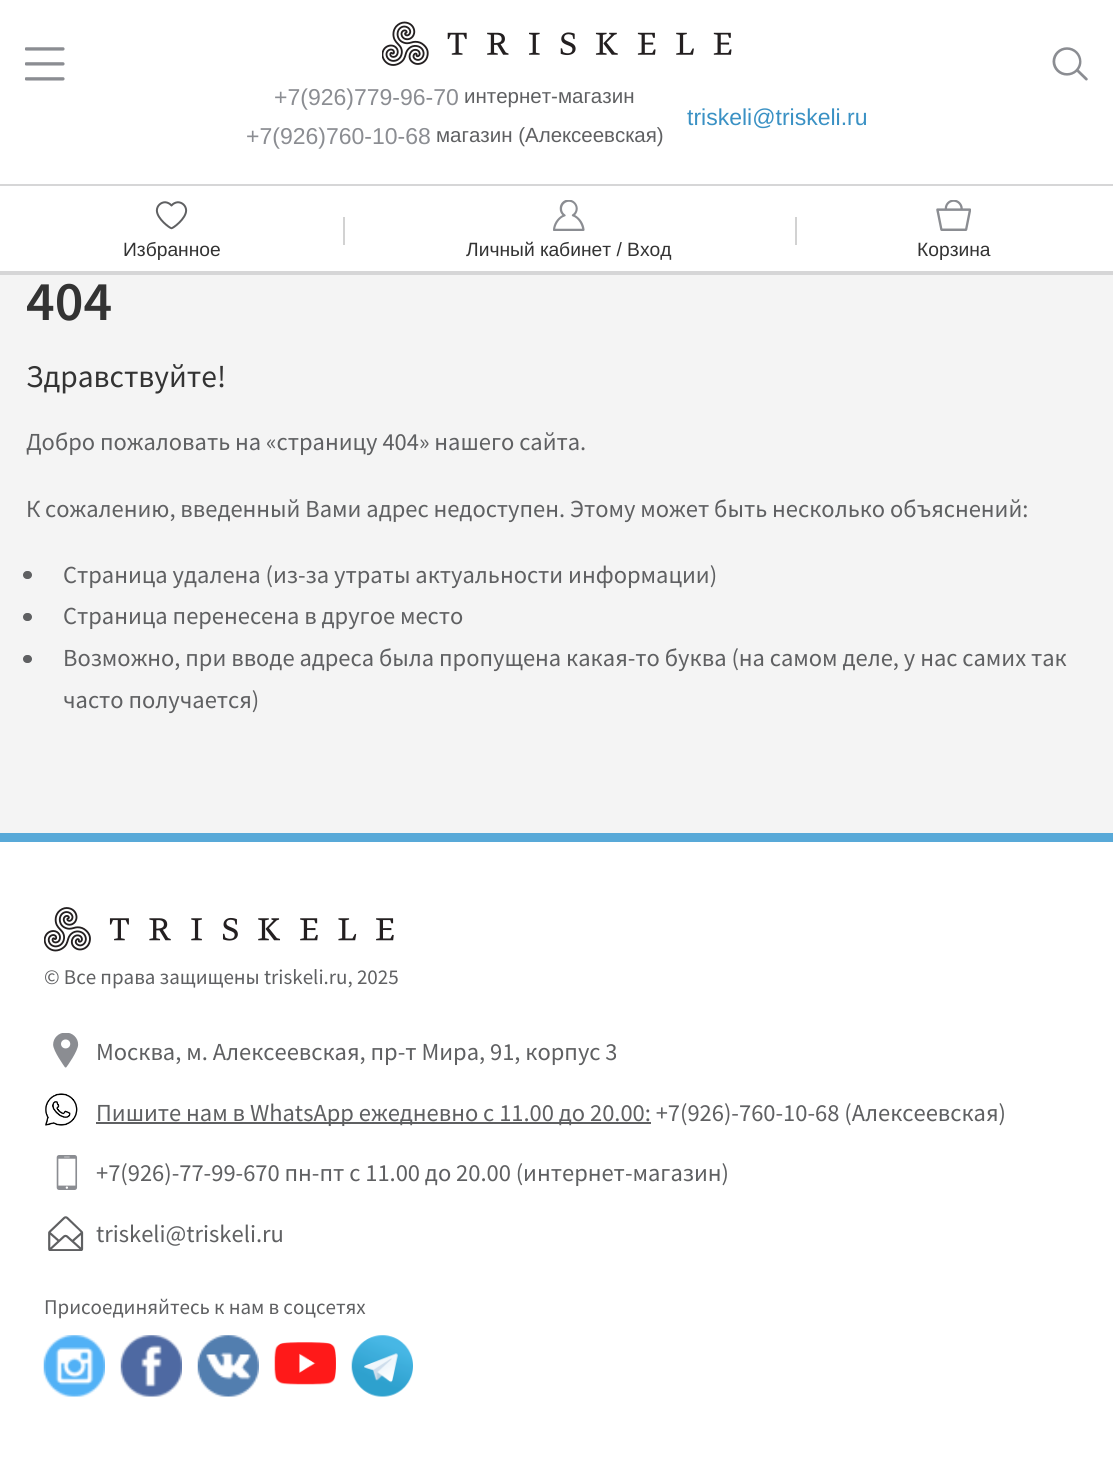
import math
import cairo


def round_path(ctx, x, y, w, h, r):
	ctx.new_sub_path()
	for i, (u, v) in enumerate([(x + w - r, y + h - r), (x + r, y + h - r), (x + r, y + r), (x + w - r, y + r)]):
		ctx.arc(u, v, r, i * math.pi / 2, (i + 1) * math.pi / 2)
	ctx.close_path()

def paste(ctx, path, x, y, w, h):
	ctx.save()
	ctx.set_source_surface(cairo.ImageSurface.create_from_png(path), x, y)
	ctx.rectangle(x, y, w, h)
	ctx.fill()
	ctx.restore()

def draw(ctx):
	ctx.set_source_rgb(0.957, 0.957, 0.957)
	ctx.paint()
	ctx.set_source_rgb(1, 1, 1)
	ctx.rectangle(0, 0, 1113, 271)
	ctx.fill()
	ctx.set_source_rgb(0.839, 0.839, 0.843)
	ctx.rectangle(0, 271, 1113, 4)
	ctx.fill()
	paste(ctx, 'media/1.png', 25, 47, 40, 34)
	paste(ctx, 'media/2.png', 1052, 47, 36, 34)
	paste(ctx, 'media/3.png', 382, 21, 350, 45)
	ctx.select_font_face('Liberation Sans')
	ctx.set_font_size(23)
	ctx.set_source_rgb(0.545, 0.553, 0.573)
	ctx.move_to(274, 105)
	ctx.show_text('+7(926)779-96-70')
	ctx.set_font_size(20.5)
	ctx.set_source_rgb(0.373, 0.376, 0.384)
	ctx.move_to(464, 103)
	ctx.show_text('интернет-магазин')
	ctx.set_font_size(23)
	ctx.set_source_rgb(0.545, 0.553, 0.573)
	ctx.move_to(246, 144)
	ctx.show_text('+7(926)760-10-68')
	ctx.set_font_size(20.5)
	ctx.set_source_rgb(0.373, 0.376, 0.384)
	ctx.move_to(436, 142)
	ctx.show_text('магазин (Алексеевская)')
	ctx.set_font_size(23)
	ctx.set_source_rgb(0.227, 0.569, 0.769)
	ctx.move_to(687, 125)
	ctx.show_text('triskeli@triskeli.ru')
	ctx.set_source_rgb(0.839, 0.839, 0.843)
	ctx.rectangle(0, 184, 1113, 2)
	ctx.fill()
	paste(ctx, 'media/4.png', 155, 201, 33, 29)
	ctx.set_font_size(19.25)
	ctx.set_source_rgb(0.2, 0.2, 0.2)
	ctx.move_to(123, 256)
	ctx.show_text('Избранное')
	ctx.set_source_rgb(0.824, 0.824, 0.824)
	ctx.rectangle(343, 217, 2, 28)
	ctx.fill()
	paste(ctx, 'media/5.png', 553, 200, 32, 31)
	ctx.set_source_rgb(0.2, 0.2, 0.2)
	ctx.move_to(466, 256)
	ctx.show_text('Личный кабинет / Вход')
	ctx.set_source_rgb(0.824, 0.824, 0.824)
	ctx.rectangle(795, 217, 2, 28)
	ctx.fill()
	paste(ctx, 'media/6.png', 936, 200, 35, 31)
	ctx.set_source_rgb(0.2, 0.2, 0.2)
	ctx.move_to(917, 256)
	ctx.show_text('Корзина')
	ctx.select_font_face('Source Sans Pro SemiBold')
	ctx.set_font_size(56)
	ctx.move_to(26, 320)
	ctx.show_text('404')
	ctx.select_font_face('Source Sans Pro')
	ctx.set_font_size(31.5)
	ctx.move_to(26, 387)
	ctx.show_text('Здравствуйте!')
	ctx.set_font_size(24.5)
	ctx.set_source_rgb(0.373, 0.376, 0.384)
	ctx.move_to(26, 450)
	ctx.show_text('Добро пожаловать на «страницу 404» нашего сайта.')
	ctx.move_to(26, 517)
	ctx.show_text('К сожалению, введенный Вами адрес недоступен. Этому может быть несколько объяснений:')
	round_path(ctx, 23, 571, 9, 8, 4)
	ctx.fill()
	ctx.move_to(63, 583)
	ctx.show_text('Страница удалена (из-за утраты актуальности информации)')
	round_path(ctx, 23, 613, 9, 8, 4)
	ctx.fill()
	ctx.move_to(63, 624)
	ctx.show_text('Страница перенесена в другое место')
	round_path(ctx, 23, 655, 9, 8, 4)
	ctx.fill()
	ctx.move_to(63, 666)
	ctx.show_text('Возможно, при вводе адреса была пропущена какая-то буква (на самом деле, у нас самих так')
	ctx.move_to(63, 708)
	ctx.show_text('часто получается)')
	ctx.set_source_rgb(1, 1, 1)
	ctx.rectangle(0, 842, 1113, 627)
	ctx.fill()
	ctx.set_source_rgb(0.345, 0.663, 0.847)
	ctx.rectangle(0, 833, 1113, 9)
	ctx.fill()
	paste(ctx, 'media/7.png', 44, 907, 350, 45)
	ctx.set_font_size(21)
	ctx.set_source_rgb(0.373, 0.376, 0.384)
	ctx.move_to(44, 984)
	ctx.show_text('© Все права защищены triskeli.ru, 2025')
	paste(ctx, 'media/8.png', 53, 1033, 26, 35)
	ctx.set_font_size(24.5)
	ctx.move_to(96, 1060)
	ctx.show_text('Москва, м. Алексеевская, пр-т Мира, 91, корпус 3')
	paste(ctx, 'media/9.png', 45, 1093, 33, 33)
	ctx.rectangle(96, 1122, 555, 2)
	ctx.fill()
	ctx.move_to(96, 1121)
	ctx.show_text('Пишите нам в WhatsApp ежедневно с 11.00 до 20.00: +7(926)-760-10-68 (Алексеевская)')
	paste(ctx, 'media/10.png', 56, 1155, 22, 35)
	ctx.move_to(96, 1181)
	ctx.show_text('+7(926)-77-99-670 пн-пт с 11.00 до 20.00 (интернет-магазин)')
	paste(ctx, 'media/11.png', 48, 1216, 36, 35)
	ctx.move_to(96, 1242)
	ctx.show_text('triskeli@triskeli.ru')
	ctx.set_font_size(21)
	ctx.move_to(44, 1314)
	ctx.show_text('Присоединяйтесь к нам в соцсетях')
	paste(ctx, 'media/12.png', 43, 1335, 62, 62)
	paste(ctx, 'media/13.png', 120, 1335, 62, 62)
	paste(ctx, 'media/14.png', 197, 1335, 62, 62)
	paste(ctx, 'media/15.png', 274, 1342, 62, 43)
	paste(ctx, 'media/16.png', 351, 1335, 62, 62)


surface = cairo.ImageSurface(cairo.FORMAT_RGB24, 1113, 1469)
ctx = cairo.Context(surface)
options = cairo.FontOptions()
options.set_hint_metrics(cairo.HINT_METRICS_OFF)
options.set_hint_style(cairo.HINT_STYLE_NONE)
ctx.set_font_options(options)
ctx.set_miter_limit(4)
draw(ctx)
surface.write_to_png('image.png')
